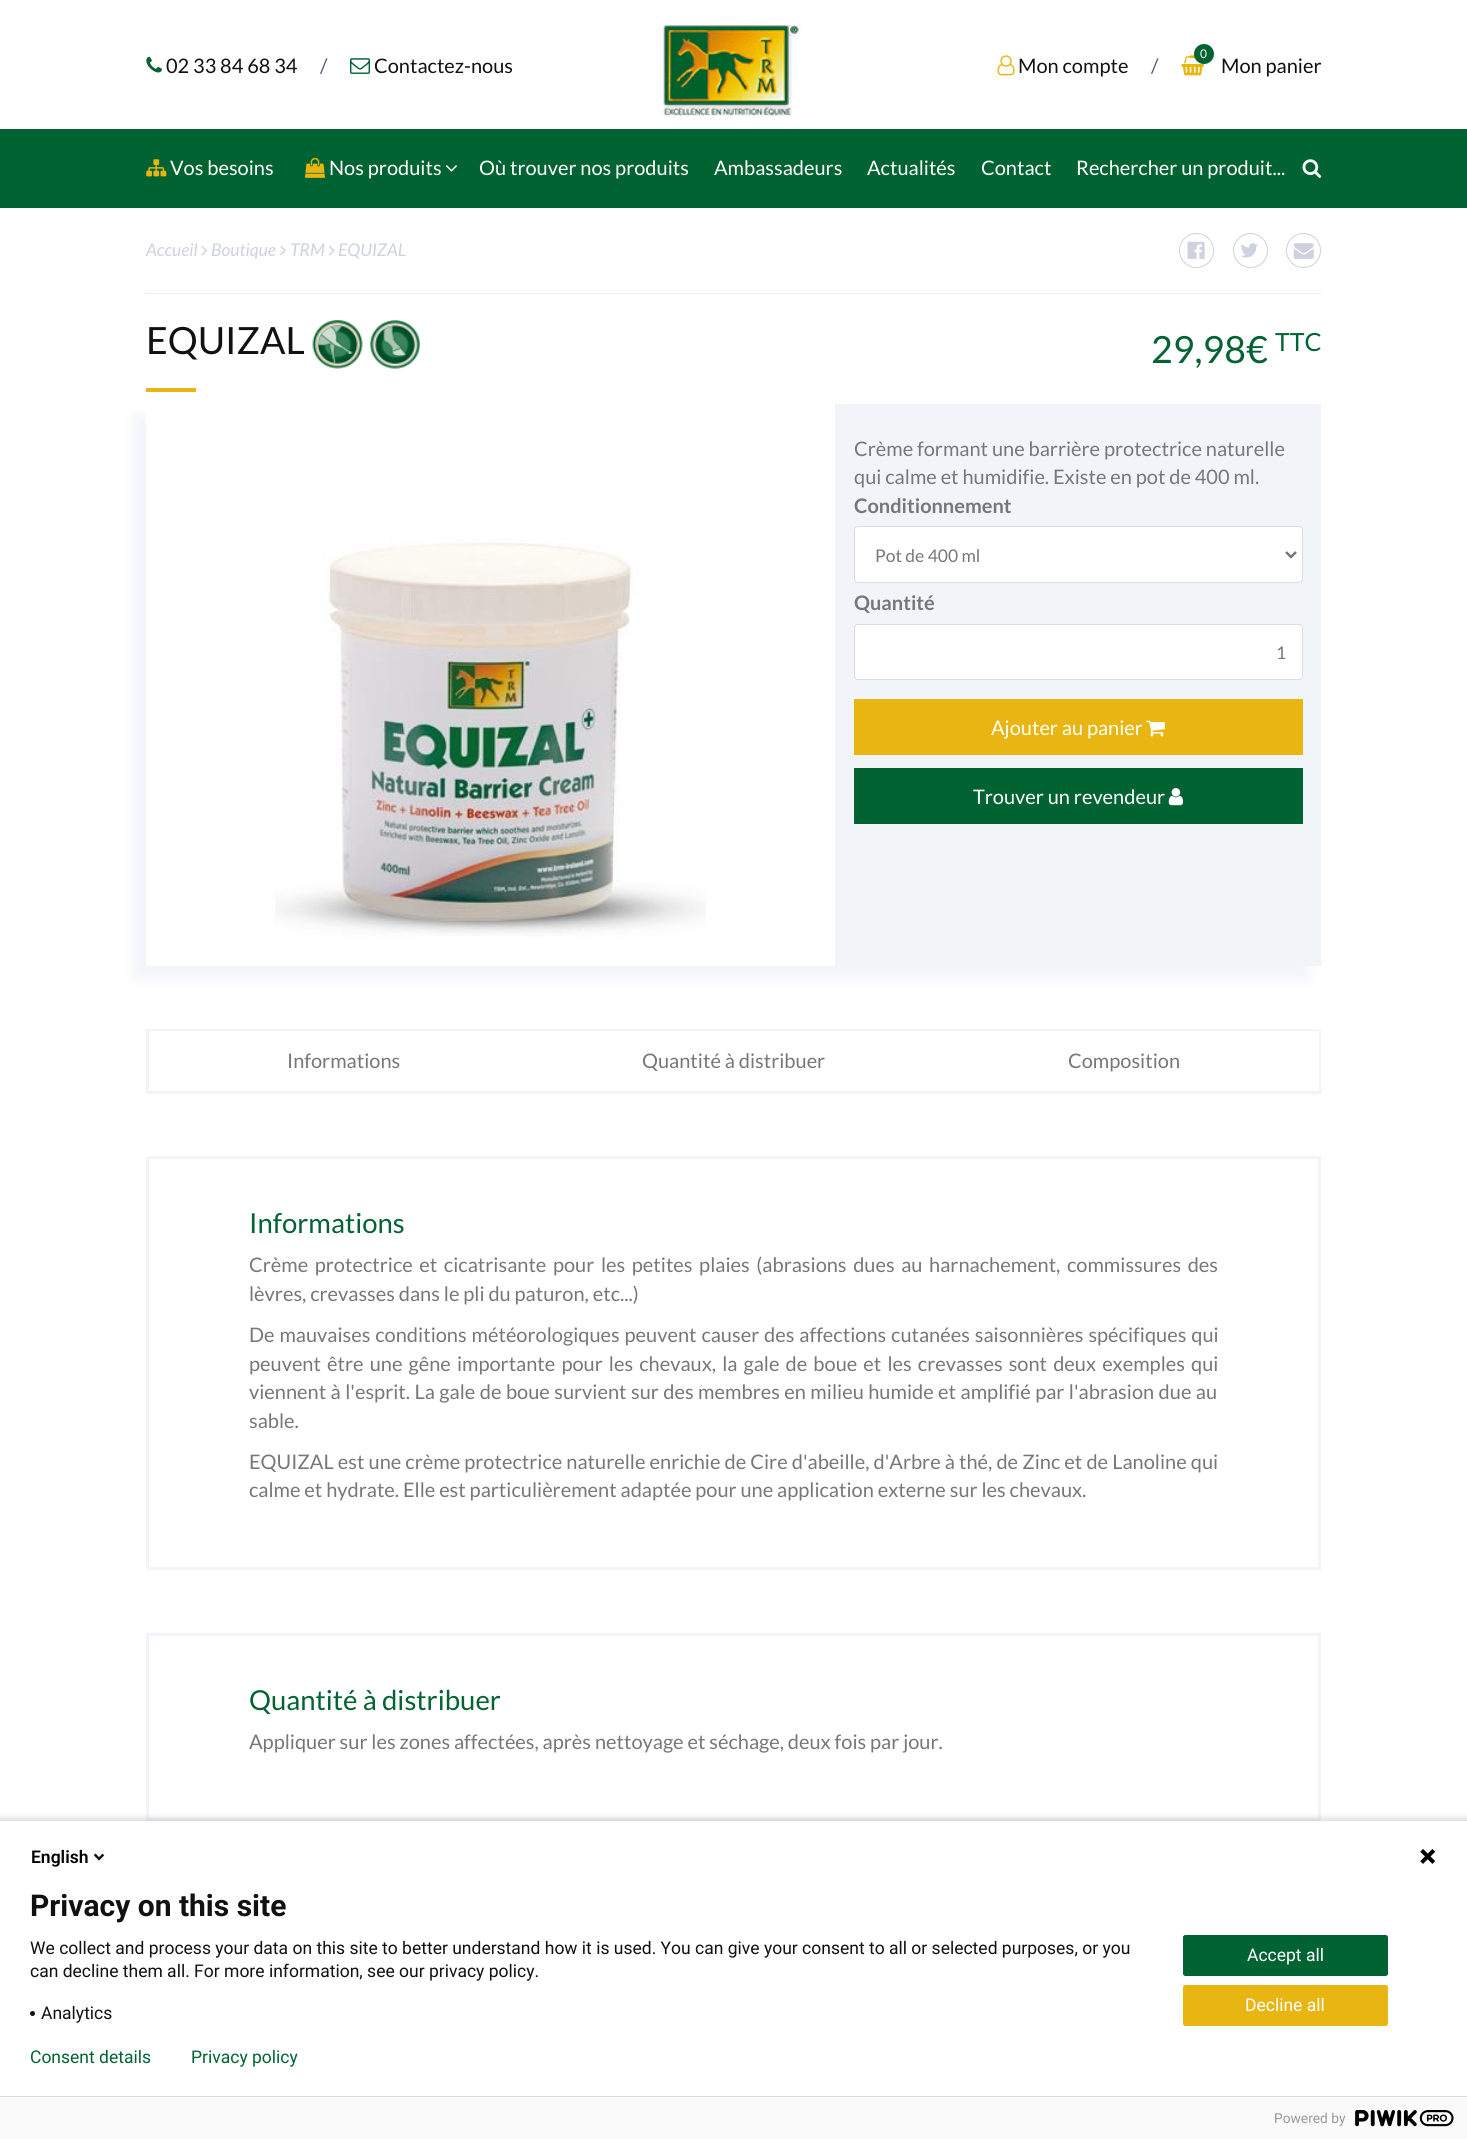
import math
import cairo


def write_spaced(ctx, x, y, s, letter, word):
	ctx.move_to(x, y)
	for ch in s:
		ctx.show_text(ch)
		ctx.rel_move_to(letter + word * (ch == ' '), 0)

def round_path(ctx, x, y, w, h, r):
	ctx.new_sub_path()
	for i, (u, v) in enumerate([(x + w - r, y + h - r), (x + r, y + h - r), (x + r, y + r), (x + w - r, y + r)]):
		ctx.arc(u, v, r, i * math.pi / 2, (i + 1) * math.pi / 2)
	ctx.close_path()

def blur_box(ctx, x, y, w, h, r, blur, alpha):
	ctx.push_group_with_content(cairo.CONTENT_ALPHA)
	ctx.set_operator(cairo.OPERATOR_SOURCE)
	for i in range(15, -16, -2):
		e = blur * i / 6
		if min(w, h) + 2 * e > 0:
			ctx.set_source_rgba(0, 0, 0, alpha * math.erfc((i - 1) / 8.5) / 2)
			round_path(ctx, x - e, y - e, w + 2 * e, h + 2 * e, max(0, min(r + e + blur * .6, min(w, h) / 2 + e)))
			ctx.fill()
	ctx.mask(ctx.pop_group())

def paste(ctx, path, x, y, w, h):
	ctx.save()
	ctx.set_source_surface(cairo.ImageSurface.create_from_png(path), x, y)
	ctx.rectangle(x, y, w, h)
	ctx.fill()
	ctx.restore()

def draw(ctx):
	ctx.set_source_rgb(1, 1, 1)
	ctx.paint()
	paste(ctx, 'media/1.png', 146, 56, 16, 17)
	ctx.select_font_face('Lato')
	ctx.set_font_size(20)
	ctx.set_source_rgb(0.067, 0.067, 0.067)
	ctx.move_to(166, 73)
	ctx.show_text('02 33 84 68 34')
	ctx.set_source_rgb(0.329, 0.361, 0.486)
	ctx.move_to(320, 73)
	ctx.show_text('/')
	paste(ctx, 'media/2.png', 350, 58, 20, 16)
	ctx.set_source_rgb(0.067, 0.067, 0.067)
	ctx.move_to(374, 73)
	ctx.show_text('Contactez-nous')
	paste(ctx, 'media/3.png', 663, 25, 138, 91)
	paste(ctx, 'media/4.png', 997, 55, 18, 21)
	ctx.move_to(1018, 73)
	ctx.show_text('Mon compte')
	ctx.set_source_rgb(0.329, 0.361, 0.486)
	ctx.move_to(1151, 73)
	ctx.show_text('/')
	paste(ctx, 'media/5.png', 1181, 55, 24, 21)
	ctx.set_source_rgb(0.004, 0.388, 0.196)
	ctx.arc(1204, 54, 10, 0, 2 * math.pi)
	ctx.fill()
	ctx.set_font_size(12)
	ctx.set_source_rgb(1, 1, 1)
	ctx.move_to(1200, 58)
	ctx.show_text('0')
	ctx.set_font_size(20)
	ctx.set_source_rgb(0.067, 0.067, 0.067)
	ctx.move_to(1221, 73)
	ctx.show_text('Mon panier')
	ctx.set_source_rgb(0.004, 0.388, 0.196)
	ctx.rectangle(0, 129, 1467, 79)
	ctx.fill()
	paste(ctx, 'media/6.png', 146, 159, 21, 18)
	ctx.set_source_rgb(1, 1, 1)
	ctx.move_to(170, 175)
	ctx.show_text('Vos besoins')
	paste(ctx, 'media/7.png', 305, 157, 20, 21)
	ctx.move_to(329, 175)
	ctx.show_text('Nos produits')
	paste(ctx, 'media/8.png', 445, 165, 12, 7)
	for x, y, s in [
		(479, 175, 'Où trouver nos produits'),
		(714, 175, 'Ambassadeurs'),
		(867, 175, 'Actualités'),
		(981, 175, 'Contact'),
		(1076, 175, 'Rechercher un produit...'),
	]:
		ctx.move_to(x, y)
		ctx.show_text(s)
	paste(ctx, 'media/9.png', 1302, 159, 20, 19)
	ctx.select_font_face('Lato', cairo.FONT_SLANT_ITALIC)
	ctx.set_font_size(17.5)
	ctx.set_source_rgb(0.804, 0.824, 0.871)
	ctx.move_to(146, 256)
	ctx.show_text('Accueil')
	paste(ctx, 'media/10.png', 201, 245, 6, 11)
	ctx.move_to(211, 256)
	ctx.show_text('Boutique')
	paste(ctx, 'media/11.png', 280, 246, 6, 10)
	ctx.move_to(290, 256)
	ctx.show_text('TRM')
	paste(ctx, 'media/12.png', 329, 245, 6, 11)
	ctx.move_to(338, 256)
	ctx.show_text('EQUIZAL')
	ctx.new_path()
	ctx.arc(1196.5, 250.5, 17, 0, 2 * math.pi)
	ctx.set_line_width(1)
	ctx.stroke()
	paste(ctx, 'media/13.png', 1187, 241, 18, 18)
	ctx.arc(1250.5, 250.5, 17, 0, 2 * math.pi)
	ctx.stroke()
	paste(ctx, 'media/14.png', 1241, 243, 17, 15)
	ctx.arc(1303.5, 250.5, 17, 0, 2 * math.pi)
	ctx.stroke()
	paste(ctx, 'media/15.png', 1293, 243, 21, 16)
	ctx.set_source_rgb(0.933, 0.933, 0.933)
	ctx.rectangle(146, 293, 1175, 1)
	ctx.fill()
	ctx.select_font_face('Lato')
	ctx.set_font_size(37.5)
	ctx.set_source_rgb(0.067, 0.067, 0.067)
	ctx.move_to(146, 354)
	ctx.show_text('EQUIZAL')
	paste(ctx, 'media/16.png', 312, 320, 51, 49)
	paste(ctx, 'media/17.png', 370, 320, 50, 49)
	ctx.set_source_rgb(0.91, 0.71, 0.071)
	ctx.rectangle(146, 388, 50, 4)
	ctx.fill()
	ctx.save()
	ctx.set_fill_rule(cairo.FILL_RULE_EVEN_ODD)
	ctx.new_path()
	ctx.move_to(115, 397)
	ctx.line_to(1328, 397)
	ctx.line_to(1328, 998)
	ctx.line_to(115, 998)
	ctx.close_path()
	ctx.move_to(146, 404)
	ctx.line_to(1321, 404)
	ctx.line_to(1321, 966)
	ctx.line_to(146, 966)
	ctx.close_path()
	ctx.clip()
	ctx.set_source_rgb(0.945, 0.957, 0.973)
	blur_box(ctx, 134, 416, 1175, 563, 0, 6, 1)
	ctx.restore()
	paste(ctx, 'media/18.png', 275, 538, 431, 399)
	ctx.set_source_rgb(0.945, 0.957, 0.973)
	ctx.rectangle(835, 404, 486, 562)
	ctx.fill()
	ctx.set_source_rgb(0.004, 0.388, 0.196)
	ctx.move_to(1151, 363)
	ctx.show_text('29,98€')
	ctx.set_font_size(25)
	ctx.move_to(1275, 351)
	ctx.show_text('TTC')
	ctx.set_font_size(20)
	ctx.set_source_rgb(0.467, 0.467, 0.467)
	ctx.move_to(854, 456)
	ctx.show_text('Crème formant une barrière protectrice naturelle')
	ctx.move_to(854, 484)
	ctx.show_text('qui calme et humidifie. Existe en pot de 400 ml.')
	ctx.select_font_face('Lato', cairo.FONT_SLANT_NORMAL, cairo.FONT_WEIGHT_BOLD)
	ctx.move_to(854, 513)
	ctx.show_text('Conditionnement')
	ctx.set_source_rgb(1, 1, 1)
	round_path(ctx, 854.5, 526.5, 448, 56, 3.5)
	ctx.fill_preserve()
	ctx.set_source_rgb(0.851, 0.867, 0.89)
	ctx.stroke()
	ctx.new_path()
	ctx.move_to(1286, 552)
	ctx.line_to(1291, 557)
	ctx.line_to(1296, 552)
	ctx.set_source_rgb(0.467, 0.467, 0.467)
	ctx.set_line_width(2.5)
	ctx.stroke()
	ctx.select_font_face('Lato')
	ctx.set_font_size(17.5)
	ctx.move_to(875, 562)
	ctx.show_text('Pot de 400 ml')
	ctx.select_font_face('Lato', cairo.FONT_SLANT_NORMAL, cairo.FONT_WEIGHT_BOLD)
	ctx.set_font_size(20)
	ctx.move_to(854, 610)
	ctx.show_text('Quantité')
	ctx.set_source_rgb(1, 1, 1)
	round_path(ctx, 854.5, 624.5, 448, 55, 3.5)
	ctx.fill_preserve()
	ctx.set_source_rgb(0.851, 0.867, 0.89)
	ctx.set_line_width(1)
	ctx.stroke()
	ctx.select_font_face('Lato')
	ctx.set_font_size(17.5)
	ctx.set_source_rgb(0.467, 0.467, 0.467)
	ctx.move_to(1276, 659)
	ctx.show_text('1')
	ctx.set_source_rgb(0.91, 0.71, 0.071)
	ctx.rectangle(854, 699, 449, 56)
	ctx.fill()
	ctx.set_font_size(20)
	ctx.set_source_rgb(1, 1, 1)
	ctx.move_to(991, 735)
	ctx.show_text('Ajouter au panier')
	paste(ctx, 'media/19.png', 1146, 720, 19, 17)
	ctx.set_source_rgb(0.004, 0.388, 0.196)
	ctx.rectangle(854, 768, 449, 56)
	ctx.fill()
	ctx.set_source_rgb(1, 1, 1)
	ctx.move_to(973, 804)
	ctx.show_text('Trouver un revendeur')
	paste(ctx, 'media/20.png', 1168, 788, 15, 18)
	ctx.rectangle(147.5, 1030.5, 1172, 62)
	ctx.set_source_rgb(0.945, 0.957, 0.973)
	ctx.set_line_width(3)
	ctx.stroke()
	ctx.set_source_rgb(1, 1, 1)
	ctx.rectangle(149, 1031, 780, 1)
	ctx.fill()
	ctx.set_source_rgb(0.467, 0.467, 0.467)
	ctx.move_to(287, 1068)
	ctx.show_text('Informations')
	ctx.move_to(642, 1068)
	ctx.show_text('Quantité à distribuer')
	ctx.set_source_rgb(1, 1, 1)
	ctx.rectangle(929, 1031, 390, 60)
	ctx.fill()
	ctx.set_source_rgb(0.467, 0.467, 0.467)
	ctx.move_to(1068, 1068)
	ctx.show_text('Composition')
	ctx.rectangle(147.5, 1157.5, 1172, 411)
	ctx.set_source_rgb(0.945, 0.957, 0.973)
	ctx.stroke()
	ctx.set_font_size(27.5)
	ctx.set_source_rgb(0.004, 0.388, 0.196)
	ctx.move_to(249, 1233)
	ctx.show_text('Informations')
	ctx.set_font_size(20)
	ctx.set_source_rgb(0.467, 0.467, 0.467)
	write_spaced(ctx, 249, 1272, 'Crème protectrice et cicatrisante pour les petites plaies (abrasions dues au harnachement, commissures des', 0, 2.75)
	ctx.move_to(249, 1301)
	ctx.show_text('lèvres, crevasses dans le pli du paturon, etc...)')
	write_spaced(ctx, 249, 1342, 'De mauvaises conditions météorologiques peuvent causer des affections cutanées saisonnières spécifiques qui', 0, 1)
	write_spaced(ctx, 249, 1371, 'peuvent être une gêne importante pour les chevaux, la gale de boue et les crevasses sont deux exemples qui', 0, 2.25)
	write_spaced(ctx, 249, 1399, 'viennent à l\'esprit. La gale de boue survient sur des membres en milieu humide et amplifié par l\'abrasion due au', 0, 0.6)
	ctx.move_to(249, 1428)
	ctx.show_text('sable.')
	write_spaced(ctx, 249, 1469, 'EQUIZAL est une crème protectrice naturelle enrichie de Cire d\'abeille, d\'Arbre à thé, de Zinc et de Lanoline qui', 0, 0.25)
	ctx.move_to(249, 1497)
	ctx.show_text('calme et hydrate. Elle est particulièrement adaptée pour une application externe sur les chevaux.')
	ctx.rectangle(147.5, 1634.5, 1172, 185)
	ctx.set_source_rgb(0.945, 0.957, 0.973)
	ctx.stroke()
	ctx.set_font_size(27.5)
	ctx.set_source_rgb(0.004, 0.388, 0.196)
	ctx.move_to(249, 1710)
	ctx.show_text('Quantité à distribuer')
	ctx.set_font_size(20)
	ctx.set_source_rgb(0.467, 0.467, 0.467)
	ctx.move_to(249, 1749)
	ctx.show_text('Appliquer sur les zones affectées, après nettoyage et séchage, deux fois par jour.')
	ctx.set_source_rgb(0, 0, 0)
	blur_box(ctx, -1, 1818, 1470, 321, 0, 3, 0.14)
	ctx.set_source_rgb(1, 1, 1)
	ctx.rectangle(0, 1821, 1467, 275)
	ctx.fill()
	ctx.select_font_face('Roboto SemiBold')
	ctx.set_font_size(17.5)
	ctx.set_source_rgb(0, 0, 0)
	ctx.move_to(31, 1863)
	ctx.show_text('English')
	paste(ctx, 'media/21.png', 93, 1853, 12, 8)
	paste(ctx, 'media/22.png', 1420, 1849, 16, 15)
	ctx.select_font_face('Roboto', cairo.FONT_SLANT_NORMAL, cairo.FONT_WEIGHT_BOLD)
	ctx.set_font_size(30)
	ctx.set_source_rgb(0.067, 0.067, 0.067)
	ctx.move_to(30, 1916)
	ctx.show_text('Privacy on this site')
	ctx.select_font_face('Roboto')
	ctx.set_font_size(17.5)
	ctx.move_to(30, 1954)
	ctx.show_text('We collect and process your data on this site to better understand how it is used. You can give your consent to all or selected purposes, or you')
	ctx.move_to(30, 1977)
	ctx.show_text('can decline them all. For more information, see our privacy policy.')
	ctx.set_source_rgb(0.075, 0.075, 0.075)
	ctx.new_path()
	ctx.arc(32.5, 2013.5, 2.5, 0, 2 * math.pi)
	ctx.fill()
	ctx.set_source_rgb(0.067, 0.067, 0.067)
	ctx.move_to(41, 2019)
	ctx.show_text('Analytics')
	ctx.set_source_rgb(0.004, 0.388, 0.196)
	round_path(ctx, 1183.5, 1935.5, 204, 40, 2)
	ctx.fill_preserve()
	ctx.set_line_width(1)
	ctx.stroke()
	ctx.set_source_rgb(1, 1, 1)
	ctx.move_to(1247, 1961)
	ctx.show_text('Accept all')
	ctx.set_source_rgb(0.91, 0.71, 0.071)
	round_path(ctx, 1183.5, 1985.5, 204, 40, 2)
	ctx.fill_preserve()
	ctx.stroke()
	ctx.set_source_rgb(1, 1, 1)
	ctx.move_to(1245, 2011)
	ctx.show_text('Decline all')
	ctx.set_source_rgb(0.004, 0.388, 0.196)
	ctx.move_to(30, 2063)
	ctx.show_text('Consent details')
	ctx.move_to(191, 2063)
	ctx.show_text('Privacy policy')
	ctx.set_source_rgb(0.98, 0.98, 0.98)
	ctx.rectangle(0, 2097, 1467, 42)
	ctx.fill()
	ctx.set_source_rgb(0.867, 0.867, 0.867)
	ctx.rectangle(0, 2096, 1467, 1)
	ctx.fill()
	ctx.set_font_size(13.75)
	ctx.set_source_rgb(0.6, 0.6, 0.6)
	ctx.move_to(1274, 2123)
	ctx.show_text('Powered by')
	paste(ctx, 'media/23.png', 1355, 2110, 99, 17)


surface = cairo.ImageSurface(cairo.FORMAT_RGB24, 1467, 2139)
ctx = cairo.Context(surface)
options = cairo.FontOptions()
options.set_hint_metrics(cairo.HINT_METRICS_OFF)
options.set_hint_style(cairo.HINT_STYLE_NONE)
ctx.set_font_options(options)
ctx.set_miter_limit(4)
draw(ctx)
surface.write_to_png('image.png')
